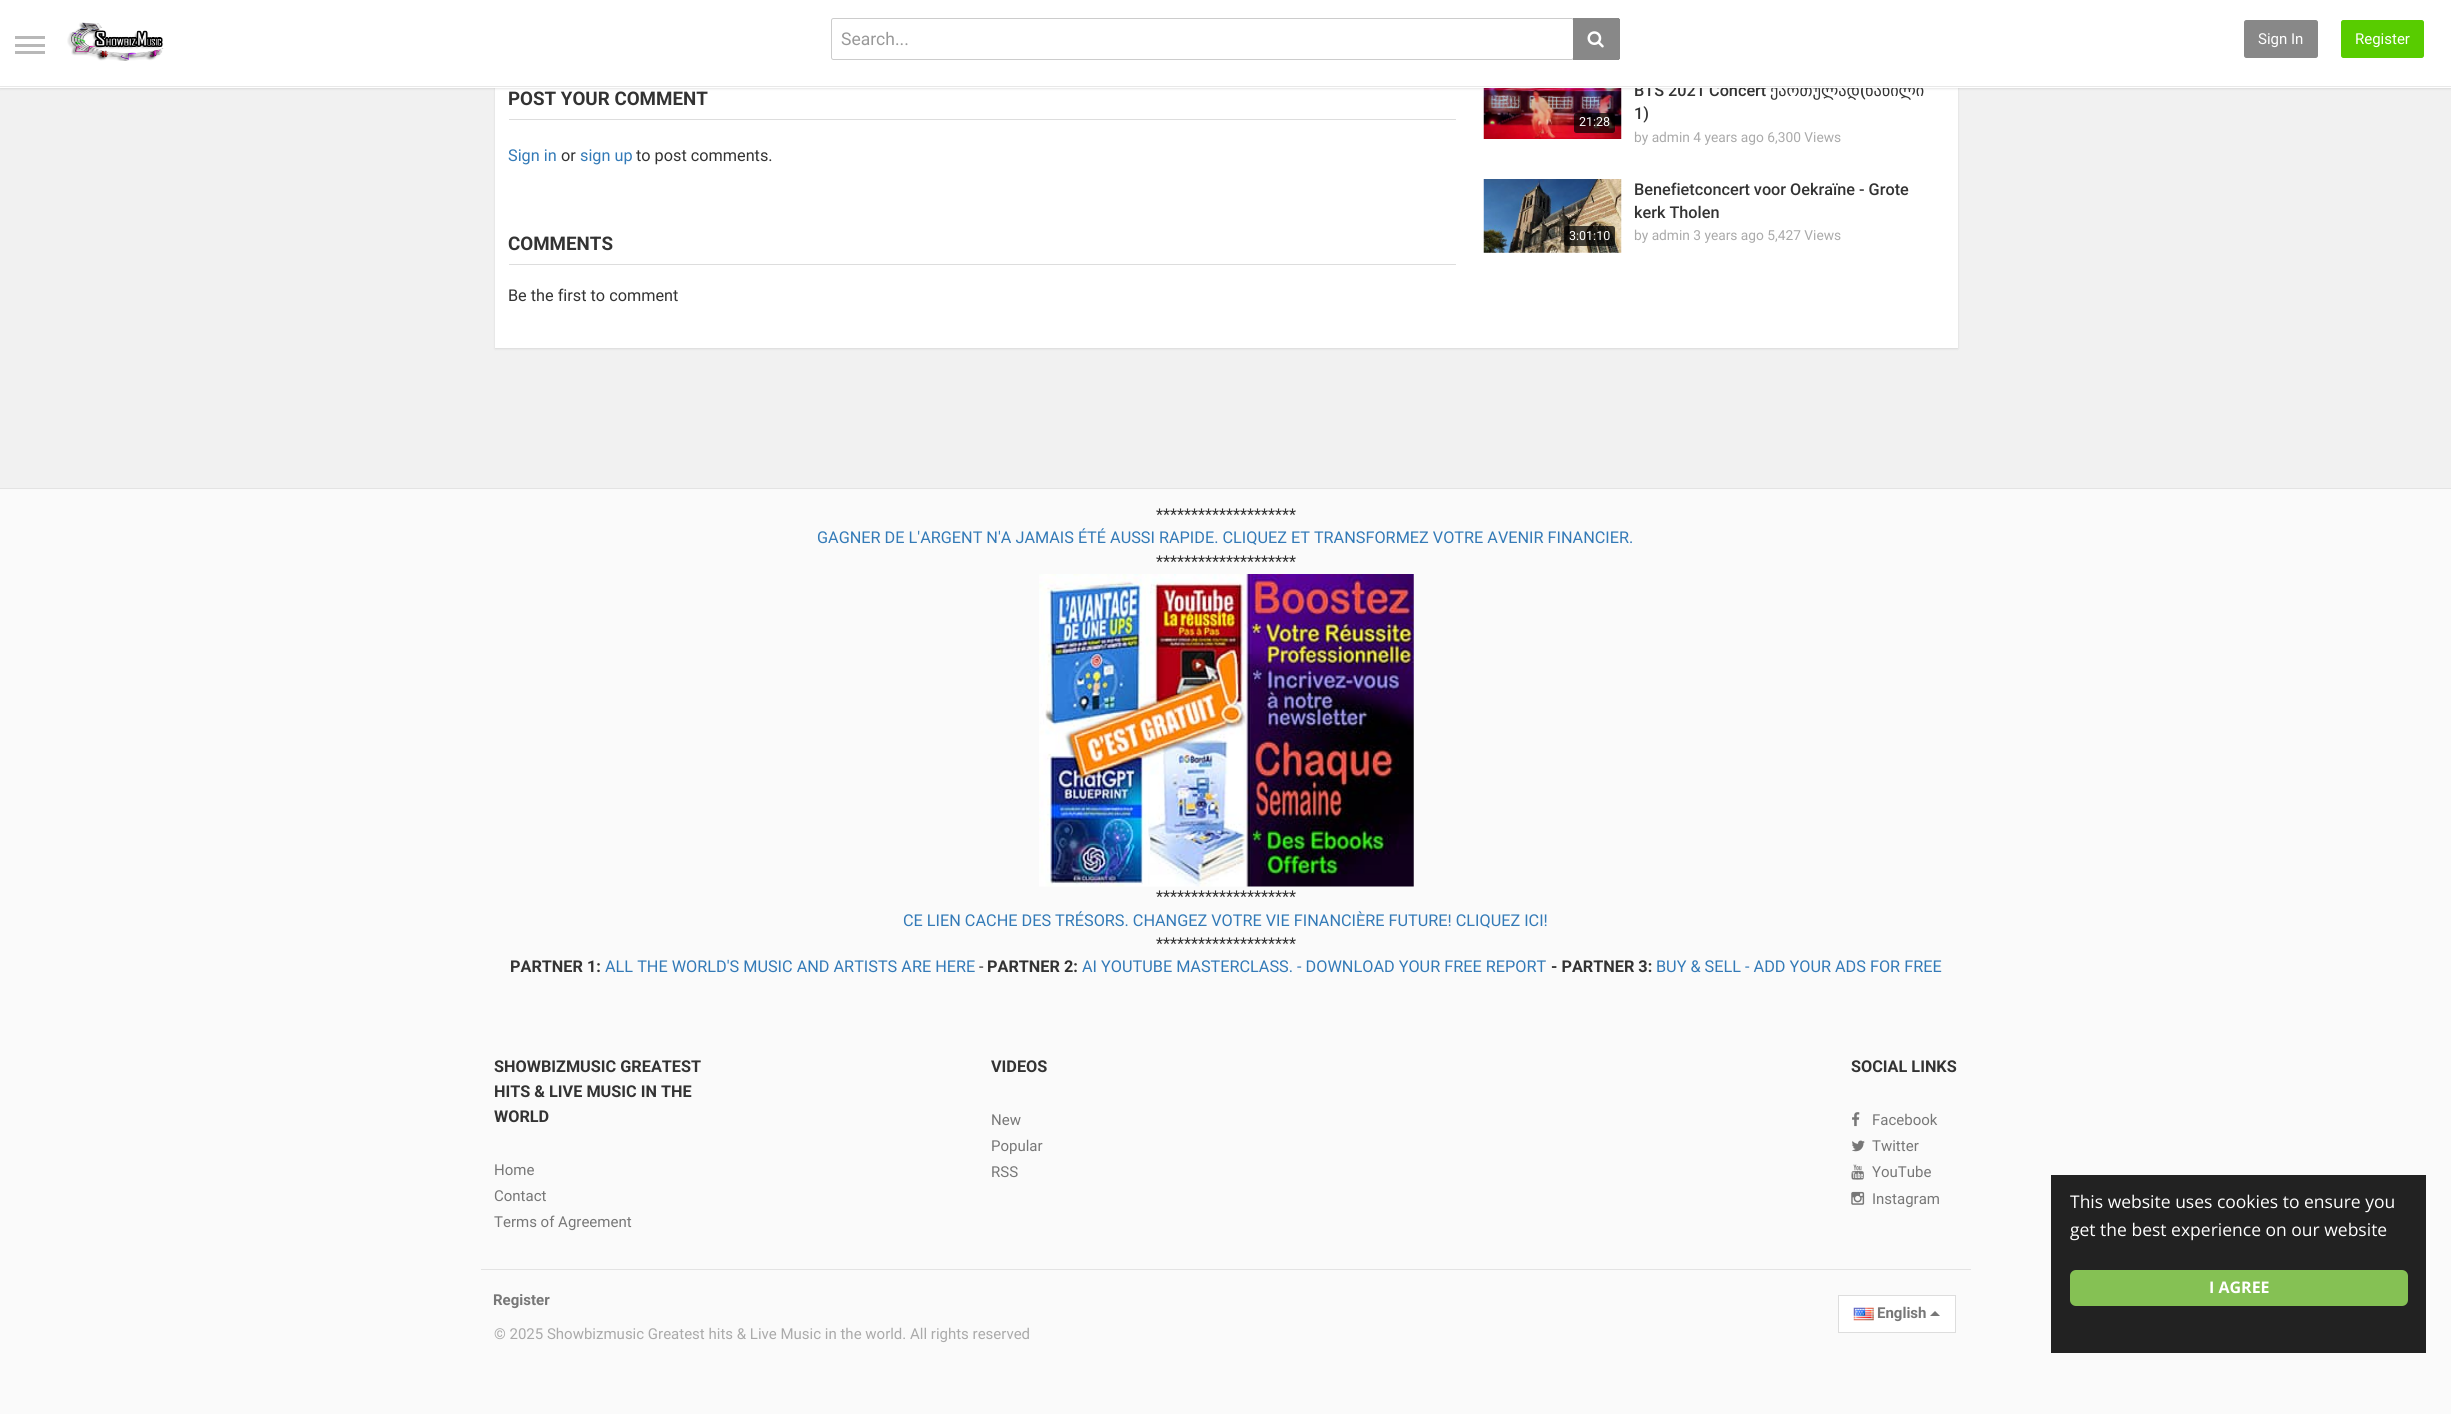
import math
import cairo


def round_path(ctx, x, y, w, h, r):
	ctx.new_sub_path()
	for i, (u, v) in enumerate([(x + w - r, y + h - r), (x + r, y + h - r), (x + r, y + r), (x + w - r, y + r)]):
		ctx.arc(u, v, r, i * math.pi / 2, (i + 1) * math.pi / 2)
	ctx.close_path()

def blur_box(ctx, x, y, w, h, r, blur, alpha):
	ctx.push_group_with_content(cairo.CONTENT_ALPHA)
	ctx.set_operator(cairo.OPERATOR_SOURCE)
	for i in range(15, -16, -2):
		e = blur * i / 6
		if min(w, h) + 2 * e > 0:
			ctx.set_source_rgba(0, 0, 0, alpha * math.erfc((i - 1) / 8.5) / 2)
			round_path(ctx, x - e, y - e, w + 2 * e, h + 2 * e, max(0, min(r + e + blur * .6, min(w, h) / 2 + e)))
			ctx.fill()
	ctx.mask(ctx.pop_group())

def paste(ctx, path, x, y, w, h):
	ctx.save()
	ctx.set_source_surface(cairo.ImageSurface.create_from_png(path), x, y)
	ctx.rectangle(x, y, w, h)
	ctx.fill()
	ctx.restore()

def draw(ctx):
	ctx.set_source_rgb(0.945, 0.945, 0.945)
	ctx.paint()
	ctx.set_source_rgb(1, 1, 1)
	ctx.rectangle(495, 88, 1463, 260)
	ctx.fill()
	ctx.save()
	ctx.set_fill_rule(cairo.FILL_RULE_EVEN_ODD)
	ctx.new_path()
	ctx.move_to(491, 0)
	ctx.line_to(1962, 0)
	ctx.line_to(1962, 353)
	ctx.line_to(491, 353)
	ctx.close_path()
	ctx.move_to(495, -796)
	ctx.line_to(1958, -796)
	ctx.line_to(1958, 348)
	ctx.line_to(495, 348)
	ctx.close_path()
	ctx.clip()
	ctx.set_source_rgb(0, 0, 0)
	blur_box(ctx, 495, -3, 1463, 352, 0, 1, 0.1)
	ctx.restore()
	paste(ctx, 'media/3.png', 1483, 88, 139, 51)
	ctx.set_source_rgb(0, 0, 0)
	blur_box(ctx, 0, 1, 2451, 88, 0, 1, 0.1)
	ctx.select_font_face('Roboto Medium')
	ctx.set_font_size(16.25)
	ctx.set_source_rgb(0.2, 0.2, 0.2)
	ctx.move_to(1634, 96)
	ctx.show_text('BTS 2021 Concert')
	ctx.select_font_face('DejaVu Sans')
	ctx.move_to(1770, 96)
	ctx.show_text('ქართულად')
	ctx.select_font_face('Roboto Medium')
	ctx.move_to(1860, 96)
	ctx.show_text('(')
	ctx.select_font_face('DejaVu Sans')
	ctx.move_to(1865, 96)
	ctx.show_text('ნაწილი')
	ctx.set_source_rgb(1, 1, 1)
	ctx.rectangle(0, 0, 2451, 88)
	ctx.fill()
	ctx.set_source_rgb(0.91, 0.91, 0.91)
	ctx.rectangle(0, 86, 2451, 1)
	ctx.fill()
	ctx.set_source_rgb(0.722, 0.722, 0.722)
	ctx.rectangle(15, 44, 30, 3)
	ctx.rectangle(15, 36, 30, 3)
	ctx.rectangle(15, 51, 30, 3)
	ctx.fill()
	paste(ctx, 'media/1.png', 67, 22, 97, 39)
	round_path(ctx, 831.5, 18.5, 742, 41, 2)
	ctx.set_source_rgb(0.8, 0.8, 0.8)
	ctx.set_line_width(1)
	ctx.stroke()
	ctx.select_font_face('Roboto')
	ctx.set_font_size(17.5)
	ctx.set_source_rgb(0.6, 0.6, 0.6)
	ctx.move_to(841, 45)
	ctx.show_text('Search...')
	ctx.set_source_rgb(0.533, 0.533, 0.533)
	ctx.new_path()
	ctx.move_to(1573, 18)
	ctx.line_to(1617.5, 18)
	ctx.curve_to(1619, 18, 1620, 19, 1620, 20.5)
	ctx.line_to(1620, 57.5)
	ctx.curve_to(1620, 59, 1619, 60, 1617.5, 60)
	ctx.line_to(1573, 60)
	ctx.close_path()
	ctx.fill()
	ctx.rectangle(1617, 18, 2, 1)
	ctx.rectangle(1619, 19, 1, 40)
	ctx.rectangle(1617, 59, 2, 1)
	ctx.fill()
	paste(ctx, 'media/2.png', 1587, 31, 17, 17)
	round_path(ctx, 2244.5, 20.5, 73, 37, 2)
	ctx.fill_preserve()
	ctx.stroke()
	ctx.set_font_size(15)
	ctx.set_source_rgb(1, 1, 1)
	ctx.move_to(2258, 44)
	ctx.show_text('Sign In')
	ctx.set_source_rgb(0.345, 0.8, 0)
	round_path(ctx, 2341.5, 20.5, 82, 37, 2)
	ctx.fill_preserve()
	ctx.stroke()
	ctx.set_source_rgb(1, 1, 1)
	ctx.move_to(2355, 44)
	ctx.show_text('Register')
	ctx.set_source_rgb(0.867, 0.867, 0.867)
	ctx.rectangle(509, 119, 947, 1)
	ctx.fill()
	ctx.select_font_face('Roboto', cairo.FONT_SLANT_NORMAL, cairo.FONT_WEIGHT_BOLD)
	ctx.set_font_size(18.75)
	ctx.set_source_rgb(0.2, 0.2, 0.2)
	ctx.move_to(508, 105)
	ctx.show_text('POST YOUR COMMENT')
	ctx.select_font_face('Roboto')
	ctx.set_font_size(16.25)
	ctx.set_source_rgb(0.2, 0.478, 0.718)
	ctx.move_to(508, 161)
	ctx.show_text('Sign in')
	ctx.set_source_rgb(0.2, 0.2, 0.2)
	ctx.move_to(561, 161)
	ctx.show_text('or')
	ctx.set_source_rgb(0.2, 0.478, 0.718)
	ctx.move_to(580, 161)
	ctx.show_text('sign up')
	ctx.set_source_rgb(0.2, 0.2, 0.2)
	ctx.move_to(636, 161)
	ctx.show_text('to post comments.')
	ctx.set_source_rgb(0.867, 0.867, 0.867)
	ctx.rectangle(509, 264, 947, 1)
	ctx.fill()
	ctx.select_font_face('Roboto', cairo.FONT_SLANT_NORMAL, cairo.FONT_WEIGHT_BOLD)
	ctx.set_font_size(18.75)
	ctx.set_source_rgb(0.2, 0.2, 0.2)
	ctx.move_to(508, 250)
	ctx.show_text('COMMENTS')
	ctx.select_font_face('Roboto')
	ctx.set_font_size(16.25)
	ctx.move_to(508, 301)
	ctx.show_text('Be the first to comment')
	ctx.set_source_rgba(0, 0, 0, 0.7)
	round_path(ctx, 1574, 113, 41, 20, 2.5)
	ctx.fill()
	ctx.set_font_size(12.5)
	ctx.set_source_rgb(1, 1, 1)
	ctx.move_to(1579, 126)
	ctx.show_text('21:28')
	ctx.select_font_face('Roboto Medium')
	ctx.set_font_size(16.25)
	ctx.set_source_rgb(0.2, 0.2, 0.2)
	ctx.move_to(1634, 119)
	ctx.show_text('1)')
	ctx.select_font_face('Roboto')
	ctx.set_font_size(13.75)
	ctx.set_source_rgb(0.667, 0.667, 0.667)
	ctx.move_to(1634, 142)
	ctx.show_text('by admin 4 years ago 6,300 Views')
	ctx.select_font_face('Roboto Medium')
	ctx.set_font_size(16.25)
	ctx.set_source_rgb(0.2, 0.2, 0.2)
	ctx.move_to(1634, 195)
	ctx.show_text('Benefietconcert voor Oekraïne - Grote')
	ctx.move_to(1634, 218)
	ctx.show_text('kerk Tholen')
	paste(ctx, 'media/4.png', 1483, 179, 139, 74)
	ctx.set_source_rgba(0, 0, 0, 0.7)
	round_path(ctx, 1564, 226, 51, 20, 2.5)
	ctx.fill()
	ctx.select_font_face('Roboto')
	ctx.set_font_size(12.5)
	ctx.set_source_rgb(1, 1, 1)
	ctx.move_to(1569, 240)
	ctx.show_text('3:01:10')
	ctx.set_font_size(13.75)
	ctx.set_source_rgb(0.667, 0.667, 0.667)
	ctx.move_to(1634, 240)
	ctx.show_text('by admin 3 years ago 5,427 Views')
	ctx.set_source_rgb(0.98, 0.98, 0.98)
	ctx.rectangle(0, 489, 2451, 925)
	ctx.fill()
	ctx.set_source_rgb(0.89, 0.89, 0.89)
	ctx.rectangle(0, 488, 2451, 1)
	ctx.fill()
	ctx.set_font_size(16.25)
	ctx.set_source_rgb(0.2, 0.2, 0.2)
	ctx.move_to(1156, 520)
	ctx.show_text('********************')
	ctx.set_source_rgb(0.2, 0.478, 0.718)
	ctx.move_to(817, 543)
	ctx.show_text('GAGNER DE L\'ARGENT N\'A JAMAIS ÉTÉ AUSSI RAPIDE. CLIQUEZ ET TRANSFORMEZ VOTRE AVENIR FINANCIER.')
	ctx.set_source_rgb(0.2, 0.2, 0.2)
	ctx.move_to(1156, 567)
	ctx.show_text('********************')
	paste(ctx, 'media/5.png', 1039, 574, 375, 313)
	ctx.move_to(1156, 902)
	ctx.show_text('********************')
	ctx.set_source_rgb(0.2, 0.478, 0.718)
	ctx.move_to(903, 926)
	ctx.show_text('CE LIEN CACHE DES TRÉSORS. CHANGEZ VOTRE VIE FINANCIÈRE FUTURE! CLIQUEZ ICI!')
	ctx.set_source_rgb(0.2, 0.2, 0.2)
	ctx.move_to(1156, 949)
	ctx.show_text('********************')
	ctx.select_font_face('Roboto', cairo.FONT_SLANT_NORMAL, cairo.FONT_WEIGHT_BOLD)
	ctx.move_to(510, 972)
	ctx.show_text('PARTNER 1:')
	ctx.select_font_face('Roboto')
	ctx.set_source_rgb(0.2, 0.478, 0.718)
	ctx.move_to(605, 972)
	ctx.show_text('ALL THE WORLD\'S MUSIC AND ARTISTS ARE HERE')
	ctx.set_source_rgb(0.2, 0.2, 0.2)
	ctx.move_to(979, 972)
	ctx.show_text('-')
	ctx.select_font_face('Roboto', cairo.FONT_SLANT_NORMAL, cairo.FONT_WEIGHT_BOLD)
	ctx.move_to(987, 972)
	ctx.show_text('PARTNER 2:')
	ctx.select_font_face('Roboto')
	ctx.set_source_rgb(0.2, 0.478, 0.718)
	ctx.move_to(1082, 972)
	ctx.show_text('AI YOUTUBE MASTERCLASS. - DOWNLOAD YOUR FREE REPORT')
	ctx.select_font_face('Roboto', cairo.FONT_SLANT_NORMAL, cairo.FONT_WEIGHT_BOLD)
	ctx.set_source_rgb(0.2, 0.2, 0.2)
	ctx.move_to(1551, 972)
	ctx.show_text('- PARTNER 3:')
	ctx.select_font_face('Roboto')
	ctx.set_source_rgb(0.2, 0.478, 0.718)
	ctx.move_to(1656, 972)
	ctx.show_text('BUY & SELL - ADD YOUR ADS FOR FREE')
	ctx.select_font_face('Roboto', cairo.FONT_SLANT_NORMAL, cairo.FONT_WEIGHT_BOLD)
	ctx.set_source_rgb(0.2, 0.2, 0.2)
	for x, y, s in [
		(494, 1072, 'SHOWBIZMUSIC GREATEST'),
		(494, 1097, 'HITS & LIVE MUSIC IN THE'),
		(494, 1122, 'WORLD'),
	]:
		ctx.move_to(x, y)
		ctx.show_text(s)
	ctx.select_font_face('Roboto')
	ctx.set_font_size(15)
	ctx.set_source_rgb(0.467, 0.467, 0.467)
	for x, y, s in [
		(494, 1175, 'Home'),
		(494, 1201, 'Contact'),
		(494, 1227, 'Terms of Agreement'),
	]:
		ctx.move_to(x, y)
		ctx.show_text(s)
	ctx.select_font_face('Roboto', cairo.FONT_SLANT_NORMAL, cairo.FONT_WEIGHT_BOLD)
	ctx.set_font_size(16.25)
	ctx.set_source_rgb(0.2, 0.2, 0.2)
	ctx.move_to(991, 1072)
	ctx.show_text('VIDEOS')
	ctx.select_font_face('Roboto')
	ctx.set_font_size(15)
	ctx.set_source_rgb(0.467, 0.467, 0.467)
	for x, y, s in [
		(991, 1125, 'New'),
		(991, 1151, 'Popular'),
		(991, 1177, 'RSS'),
	]:
		ctx.move_to(x, y)
		ctx.show_text(s)
	ctx.select_font_face('Roboto', cairo.FONT_SLANT_NORMAL, cairo.FONT_WEIGHT_BOLD)
	ctx.set_font_size(16.25)
	ctx.set_source_rgb(0.2, 0.2, 0.2)
	ctx.move_to(1851, 1072)
	ctx.show_text('SOCIAL LINKS')
	paste(ctx, 'media/6.png', 1852, 1112, 8, 15)
	ctx.select_font_face('Roboto')
	ctx.set_font_size(15)
	ctx.set_source_rgb(0.467, 0.467, 0.467)
	ctx.move_to(1872, 1125)
	ctx.show_text('Facebook')
	paste(ctx, 'media/7.png', 1852, 1140, 13, 12)
	ctx.move_to(1872, 1151)
	ctx.show_text('Twitter')
	paste(ctx, 'media/8.png', 1851, 1164, 13, 16)
	ctx.move_to(1872, 1177)
	ctx.show_text('YouTube')
	paste(ctx, 'media/9.png', 1851, 1191, 14, 14)
	ctx.move_to(1872, 1204)
	ctx.show_text('Instagram')
	ctx.set_source_rgb(0.89, 0.89, 0.89)
	ctx.rectangle(481, 1269, 1490, 1)
	ctx.fill()
	ctx.select_font_face('Roboto', cairo.FONT_SLANT_NORMAL, cairo.FONT_WEIGHT_BOLD)
	ctx.set_source_rgb(0.467, 0.467, 0.467)
	ctx.move_to(493, 1305)
	ctx.show_text('Register')
	ctx.select_font_face('Roboto')
	ctx.set_source_rgb(0.667, 0.667, 0.667)
	ctx.move_to(494, 1339)
	ctx.show_text('© 2025 Showbizmusic Greatest hits & Live Music in the world. All rights reserved')
	ctx.set_source_rgb(1, 1, 1)
	ctx.rectangle(1838.5, 1295.5, 117, 37)
	ctx.fill_preserve()
	ctx.set_source_rgb(0.867, 0.867, 0.867)
	ctx.stroke()
	paste(ctx, 'media/10.png', 1853, 1307, 21, 14)
	ctx.select_font_face('Roboto', cairo.FONT_SLANT_NORMAL, cairo.FONT_WEIGHT_BOLD)
	ctx.set_source_rgb(0.467, 0.467, 0.467)
	ctx.move_to(1877, 1318)
	ctx.show_text('English')
	ctx.new_path()
	ctx.move_to(1940, 1316)
	ctx.line_to(1930, 1316)
	ctx.line_to(1935, 1311)
	ctx.close_path()
	ctx.fill()
	ctx.set_source_rgb(0.133, 0.133, 0.133)
	ctx.rectangle(2051, 1175, 375, 178)
	ctx.fill()
	ctx.select_font_face('Open Sans')
	ctx.set_font_size(17.5)
	ctx.set_source_rgb(1, 1, 1)
	ctx.move_to(2070, 1208)
	ctx.show_text('This website uses cookies to ensure you')
	ctx.move_to(2070, 1236)
	ctx.show_text('get the best experience on our website')
	ctx.set_source_rgb(0.522, 0.757, 0.329)
	round_path(ctx, 2070, 1270, 338, 36, 6)
	ctx.fill()
	ctx.select_font_face('Open Sans', cairo.FONT_SLANT_NORMAL, cairo.FONT_WEIGHT_BOLD)
	ctx.set_font_size(16)
	ctx.set_source_rgb(1, 1, 1)
	ctx.move_to(2209, 1293)
	ctx.show_text('I AGREE')


surface = cairo.ImageSurface(cairo.FORMAT_RGB24, 2451, 1414)
ctx = cairo.Context(surface)
options = cairo.FontOptions()
options.set_hint_metrics(cairo.HINT_METRICS_OFF)
options.set_hint_style(cairo.HINT_STYLE_NONE)
ctx.set_font_options(options)
ctx.set_miter_limit(4)
draw(ctx)
surface.write_to_png('image.png')
